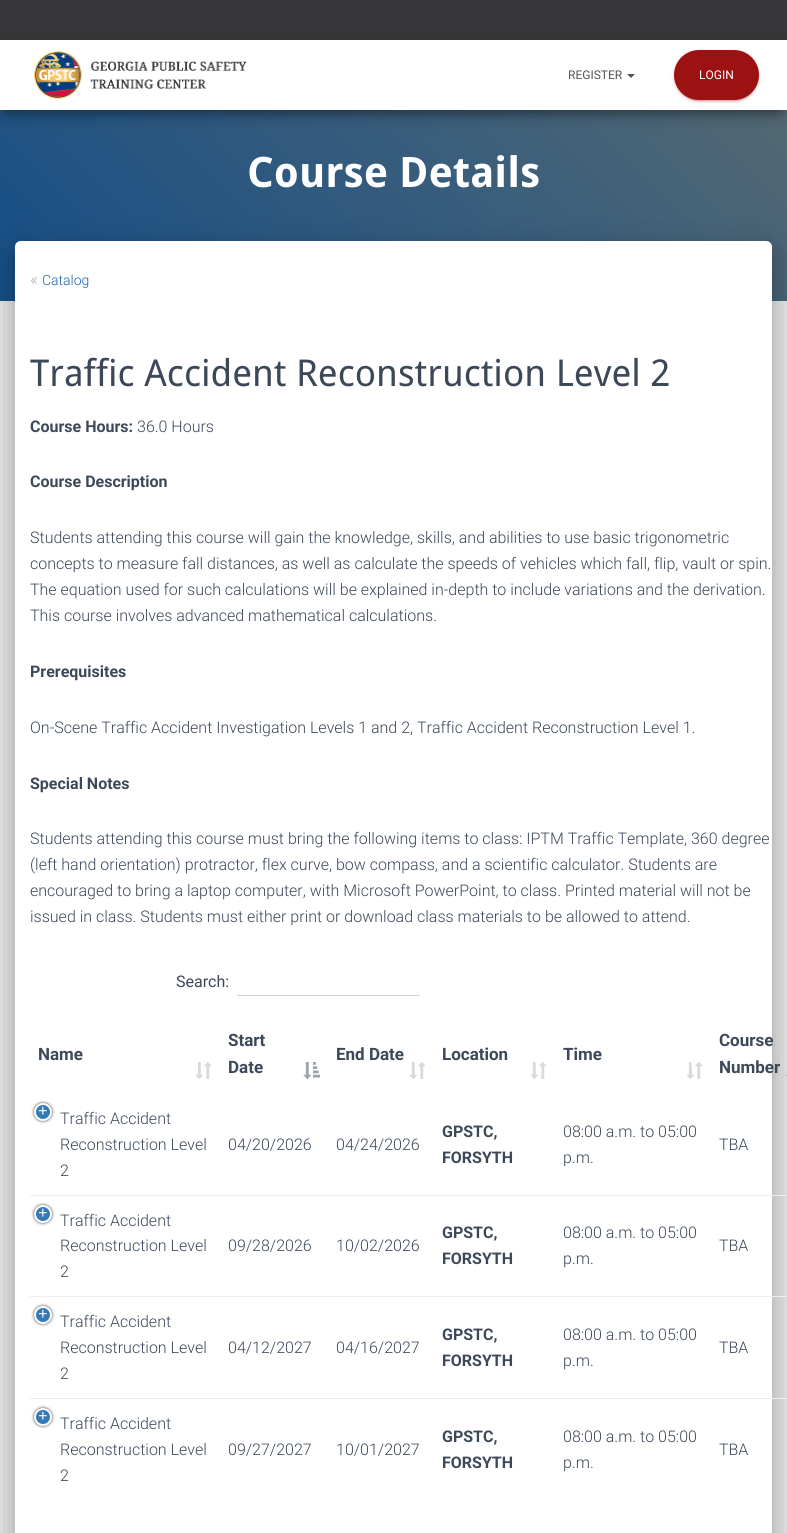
import math
import cairo


def round_path(ctx, x, y, w, h, r):
	ctx.new_sub_path()
	for i, (u, v) in enumerate([(x + w - r, y + h - r), (x + r, y + h - r), (x + r, y + r), (x + w - r, y + r)]):
		ctx.arc(u, v, r, i * math.pi / 2, (i + 1) * math.pi / 2)
	ctx.close_path()

def blur_box(ctx, x, y, w, h, r, blur, alpha):
	ctx.push_group_with_content(cairo.CONTENT_ALPHA)
	ctx.set_operator(cairo.OPERATOR_SOURCE)
	for i in range(15, -16, -2):
		e = blur * i / 6
		if min(w, h) + 2 * e > 0:
			ctx.set_source_rgba(0, 0, 0, alpha * math.erfc((i - 1) / 8.5) / 2)
			round_path(ctx, x - e, y - e, w + 2 * e, h + 2 * e, max(0, min(r + e + blur * .6, min(w, h) / 2 + e)))
			ctx.fill()
	ctx.mask(ctx.pop_group())

def paste(ctx, path, x, y, w, h):
	ctx.save()
	ctx.set_source_surface(cairo.ImageSurface.create_from_png(path), x, y)
	ctx.rectangle(x, y, w, h)
	ctx.fill()
	ctx.restore()

def draw(ctx):
	ctx.set_source_rgb(0.898, 0.898, 0.898)
	ctx.paint()
	ctx.set_source_rgb(0.212, 0.208, 0.216)
	ctx.rectangle(0, 0, 787, 40)
	ctx.fill()
	gradient = cairo.LinearGradient(132, 433, 656, -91)
	gradient.add_color_stop_rgba(0, 0.082, 0.306, 0.529, 1)
	gradient.add_color_stop_rgba(1, 0.341, 0.416, 0.447, 1)
	ctx.set_source(gradient)
	ctx.rectangle(0, 110, 787, 191)
	ctx.fill()
	ctx.set_source_rgb(0, 0, 0)
	blur_box(ctx, 5, 53, 777, 60, 0, 5, 0.2)
	blur_box(ctx, 0, 43, 787, 70, 0, 10, 0.12)
	blur_box(ctx, 12, 62, 763, 46, 0, 10, 0.42)
	ctx.set_source_rgb(1, 1, 1)
	ctx.rectangle(0, 40, 787, 70)
	ctx.fill()
	paste(ctx, 'media/1.png', 34, 51, 213, 48)
	ctx.select_font_face('Roboto')
	ctx.set_font_size(12)
	ctx.set_source_rgb(0.333, 0.333, 0.333)
	ctx.move_to(568, 79)
	ctx.show_text('REGISTER')
	ctx.new_path()
	ctx.move_to(627, 74)
	ctx.line_to(635, 74)
	ctx.line_to(631, 78)
	ctx.close_path()
	ctx.fill()
	ctx.set_source_rgb(0.612, 0.071, 0.071)
	blur_box(ctx, 674, 51, 85, 50, 25, 2.5, 0.12)
	blur_box(ctx, 676, 55, 81, 46, 23, 0.5, 0.2)
	blur_box(ctx, 674, 52, 85, 50, 25, 1, 0.14)
	ctx.set_source_rgb(0.612, 0.071, 0.071)
	round_path(ctx, 674, 50, 85, 50, 25)
	ctx.fill()
	ctx.set_source_rgb(1, 1, 1)
	ctx.move_to(699, 79)
	ctx.show_text('LOGIN')
	ctx.select_font_face('Droid Sans', cairo.FONT_SLANT_NORMAL, cairo.FONT_WEIGHT_BOLD)
	ctx.set_font_size(42)
	ctx.move_to(247, 187)
	ctx.show_text('Course Details')
	ctx.set_source_rgb(0, 0, 0)
	blur_box(ctx, 20, 254, 747, 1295, 1, 5, 0.2)
	blur_box(ctx, 10, 242, 767, 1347, 11, 15, 0.12)
	blur_box(ctx, 13, 255, 761, 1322, 8, 12, 0.14)
	ctx.set_source_rgb(1, 1, 1)
	ctx.new_path()
	ctx.move_to(21, 241)
	ctx.line_to(766, 241)
	ctx.curve_to(769.5, 241, 772, 243.5, 772, 247)
	ctx.line_to(772, 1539)
	ctx.line_to(15, 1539)
	ctx.line_to(15, 247)
	ctx.curve_to(15, 243.5, 17.5, 241, 21, 241)
	ctx.close_path()
	ctx.fill()
	ctx.select_font_face('Roboto Light')
	ctx.set_font_size(17)
	ctx.set_source_rgb(0.667, 0.667, 0.667)
	ctx.move_to(30, 285)
	ctx.show_text('«')
	ctx.set_font_size(14)
	ctx.set_source_rgb(0.106, 0.38, 0.655)
	ctx.move_to(42, 285)
	ctx.show_text('Catalog')
	ctx.select_font_face('Droid Sans')
	ctx.set_font_size(37)
	ctx.set_source_rgb(0.235, 0.282, 0.345)
	ctx.move_to(30, 386)
	ctx.show_text('Traffic Accident Reconstruction Level 2')
	ctx.select_font_face('Roboto', cairo.FONT_SLANT_NORMAL, cairo.FONT_WEIGHT_BOLD)
	ctx.set_font_size(16)
	ctx.move_to(30, 432)
	ctx.show_text('Course Hours:')
	ctx.select_font_face('Roboto Light')
	ctx.move_to(137, 432)
	ctx.show_text('36.0 Hours')
	ctx.select_font_face('Roboto', cairo.FONT_SLANT_NORMAL, cairo.FONT_WEIGHT_BOLD)
	ctx.move_to(30, 487)
	ctx.show_text('Course Description')
	ctx.select_font_face('Roboto Light')
	for x, y, s in [
		(30, 543, 'Students attending this course will gain the knowledge, skills, and abilities to use basic trigonometric'),
		(30, 569, 'concepts to measure fall distances, as well as calculate the speeds of vehicles which fall, flip, vault or spin.'),
		(30, 595, 'The equation used for such calculations will be explained in-depth to include variations and the derivation.'),
		(30, 621, 'This course involves advanced mathematical calculations.'),
	]:
		ctx.move_to(x, y)
		ctx.show_text(s)
	ctx.select_font_face('Roboto', cairo.FONT_SLANT_NORMAL, cairo.FONT_WEIGHT_BOLD)
	ctx.move_to(30, 677)
	ctx.show_text('Prerequisites')
	ctx.select_font_face('Roboto Light')
	ctx.move_to(30, 733)
	ctx.show_text('On-Scene Traffic Accident Investigation Levels 1 and 2, Traffic Accident Reconstruction Level 1.')
	ctx.select_font_face('Roboto', cairo.FONT_SLANT_NORMAL, cairo.FONT_WEIGHT_BOLD)
	ctx.move_to(30, 789)
	ctx.show_text('Special Notes')
	ctx.select_font_face('Roboto Light')
	for x, y, s in [
		(30, 844, 'Students attending this course must bring the following items to class: IPTM Traffic Template, 360 degree'),
		(30, 870, '(left hand orientation) protractor, flex curve, bow compass, and a scientific calculator. Students are'),
		(30, 896, 'encouraged to bring a laptop computer, with Microsoft PowerPoint, to class. Printed material will not be'),
		(30, 922, 'issued in class. Students must either print or download class materials to be allowed to attend.'),
	]:
		ctx.move_to(x, y)
		ctx.show_text(s)
	ctx.select_font_face('Roboto')
	ctx.move_to(176, 987)
	ctx.show_text('Search:')
	ctx.set_source_rgb(0.824, 0.824, 0.824)
	ctx.rectangle(237, 995, 183, 1)
	ctx.fill()
	ctx.select_font_face('Roboto', cairo.FONT_SLANT_NORMAL, cairo.FONT_WEIGHT_BOLD)
	ctx.set_font_size(17)
	ctx.set_source_rgb(0.235, 0.282, 0.345)
	ctx.move_to(38, 1060)
	ctx.show_text('Name')
	paste(ctx, 'media/2.png', 195, 1062, 17, 17)
	ctx.move_to(228, 1046)
	ctx.show_text('Start')
	ctx.move_to(228, 1073)
	ctx.show_text('Date')
	paste(ctx, 'media/3.png', 303, 1062, 18, 17)
	ctx.move_to(336, 1060)
	ctx.show_text('End Date')
	paste(ctx, 'media/2.png', 409, 1062, 17, 17)
	ctx.move_to(442, 1060)
	ctx.show_text('Location')
	paste(ctx, 'media/2.png', 530, 1062, 17, 17)
	ctx.move_to(563, 1060)
	ctx.show_text('Time')
	paste(ctx, 'media/2.png', 686, 1062, 17, 17)
	ctx.move_to(719, 1046)
	ctx.show_text('Course')
	ctx.move_to(719, 1073)
	ctx.show_text('Number')
	paste(ctx, 'media/4.png', 785, 1074, 2, 3)
	ctx.set_source_rgb(0.933, 0.933, 0.933)
	ctx.rectangle(30, 1195, 757, 1)
	ctx.fill()
	ctx.set_source_rgb(0.267, 0.267, 0.267)
	blur_box(ctx, 34, 1103, 18, 18, 9, 1.5, 1)
	ctx.set_source_rgb(0.2, 0.478, 0.718)
	ctx.arc(43, 1112, 8, 0, 2 * math.pi)
	ctx.fill_preserve()
	ctx.set_source_rgb(1, 1, 1)
	ctx.stroke()
	ctx.select_font_face('Liberation Mono')
	ctx.set_font_size(16)
	ctx.move_to(38, 1116)
	ctx.show_text('+')
	ctx.select_font_face('Roboto Light')
	ctx.set_source_rgb(0.235, 0.282, 0.345)
	for x, y, s in [
		(60, 1124, 'Traffic Accident'),
		(60, 1150, 'Reconstruction Level'),
		(60, 1176, '2'),
		(228, 1150, '04/20/2026'),
		(336, 1150, '04/24/2026'),
	]:
		ctx.move_to(x, y)
		ctx.show_text(s)
	ctx.select_font_face('Roboto', cairo.FONT_SLANT_NORMAL, cairo.FONT_WEIGHT_BOLD)
	ctx.move_to(442, 1137)
	ctx.show_text('GPSTC,')
	ctx.move_to(442, 1163)
	ctx.show_text('FORSYTH')
	ctx.select_font_face('Roboto Light')
	for x, y, s in [
		(563, 1137, '08:00 a.m. to 05:00'),
		(563, 1163, 'p.m.'),
		(719, 1150, 'TBA'),
	]:
		ctx.move_to(x, y)
		ctx.show_text(s)
	ctx.set_source_rgb(0.933, 0.933, 0.933)
	ctx.rectangle(30, 1296, 757, 1)
	ctx.fill()
	ctx.set_source_rgb(0.267, 0.267, 0.267)
	blur_box(ctx, 34, 1205, 18, 18, 9, 1.5, 1)
	ctx.set_source_rgb(0.2, 0.478, 0.718)
	ctx.arc(43, 1214, 8, 0, 2 * math.pi)
	ctx.fill_preserve()
	ctx.set_source_rgb(1, 1, 1)
	ctx.stroke()
	ctx.select_font_face('Liberation Mono')
	ctx.move_to(38, 1218)
	ctx.show_text('+')
	ctx.select_font_face('Roboto Light')
	ctx.set_source_rgb(0.235, 0.282, 0.345)
	for x, y, s in [
		(60, 1226, 'Traffic Accident'),
		(60, 1251, 'Reconstruction Level'),
		(60, 1277, '2'),
		(228, 1251, '09/28/2026'),
		(336, 1251, '10/02/2026'),
	]:
		ctx.move_to(x, y)
		ctx.show_text(s)
	ctx.select_font_face('Roboto', cairo.FONT_SLANT_NORMAL, cairo.FONT_WEIGHT_BOLD)
	ctx.move_to(442, 1238)
	ctx.show_text('GPSTC,')
	ctx.move_to(442, 1264)
	ctx.show_text('FORSYTH')
	ctx.select_font_face('Roboto Light')
	for x, y, s in [
		(563, 1238, '08:00 a.m. to 05:00'),
		(563, 1264, 'p.m.'),
		(719, 1251, 'TBA'),
	]:
		ctx.move_to(x, y)
		ctx.show_text(s)
	ctx.set_source_rgb(0.933, 0.933, 0.933)
	ctx.rectangle(30, 1398, 757, 1)
	ctx.fill()
	ctx.set_source_rgb(0.267, 0.267, 0.267)
	blur_box(ctx, 34, 1306, 18, 18, 9, 1.5, 1)
	ctx.set_source_rgb(0.2, 0.478, 0.718)
	ctx.arc(43, 1315, 8, 0, 2 * math.pi)
	ctx.fill_preserve()
	ctx.set_source_rgb(1, 1, 1)
	ctx.stroke()
	ctx.select_font_face('Liberation Mono')
	ctx.move_to(38, 1319)
	ctx.show_text('+')
	ctx.select_font_face('Roboto Light')
	ctx.set_source_rgb(0.235, 0.282, 0.345)
	for x, y, s in [
		(60, 1327, 'Traffic Accident'),
		(60, 1353, 'Reconstruction Level'),
		(60, 1379, '2'),
		(228, 1353, '04/12/2027'),
		(336, 1353, '04/16/2027'),
	]:
		ctx.move_to(x, y)
		ctx.show_text(s)
	ctx.select_font_face('Roboto', cairo.FONT_SLANT_NORMAL, cairo.FONT_WEIGHT_BOLD)
	ctx.move_to(442, 1340)
	ctx.show_text('GPSTC,')
	ctx.move_to(442, 1366)
	ctx.show_text('FORSYTH')
	ctx.select_font_face('Roboto Light')
	for x, y, s in [
		(563, 1340, '08:00 a.m. to 05:00'),
		(563, 1366, 'p.m.'),
		(719, 1353, 'TBA'),
	]:
		ctx.move_to(x, y)
		ctx.show_text(s)
	ctx.set_source_rgb(0.267, 0.267, 0.267)
	blur_box(ctx, 34, 1408, 18, 18, 9, 1.5, 1)
	ctx.set_source_rgb(0.2, 0.478, 0.718)
	ctx.arc(43, 1417, 8, 0, 2 * math.pi)
	ctx.fill_preserve()
	ctx.set_source_rgb(1, 1, 1)
	ctx.stroke()
	ctx.select_font_face('Liberation Mono')
	ctx.move_to(38, 1421)
	ctx.show_text('+')
	ctx.select_font_face('Roboto Light')
	ctx.set_source_rgb(0.235, 0.282, 0.345)
	for x, y, s in [
		(60, 1429, 'Traffic Accident'),
		(60, 1455, 'Reconstruction Level'),
		(60, 1481, '2'),
		(228, 1455, '09/27/2027'),
		(336, 1455, '10/01/2027'),
	]:
		ctx.move_to(x, y)
		ctx.show_text(s)
	ctx.select_font_face('Roboto', cairo.FONT_SLANT_NORMAL, cairo.FONT_WEIGHT_BOLD)
	ctx.move_to(442, 1442)
	ctx.show_text('GPSTC,')
	ctx.move_to(442, 1468)
	ctx.show_text('FORSYTH')
	ctx.select_font_face('Roboto Light')
	for x, y, s in [
		(563, 1442, '08:00 a.m. to 05:00'),
		(563, 1468, 'p.m.'),
		(719, 1455, 'TBA'),
	]:
		ctx.move_to(x, y)
		ctx.show_text(s)


surface = cairo.ImageSurface(cairo.FORMAT_RGB24, 787, 1533)
ctx = cairo.Context(surface)
options = cairo.FontOptions()
options.set_hint_metrics(cairo.HINT_METRICS_OFF)
options.set_hint_style(cairo.HINT_STYLE_NONE)
ctx.set_font_options(options)
ctx.set_miter_limit(4)
draw(ctx)
surface.write_to_png('image.png')
